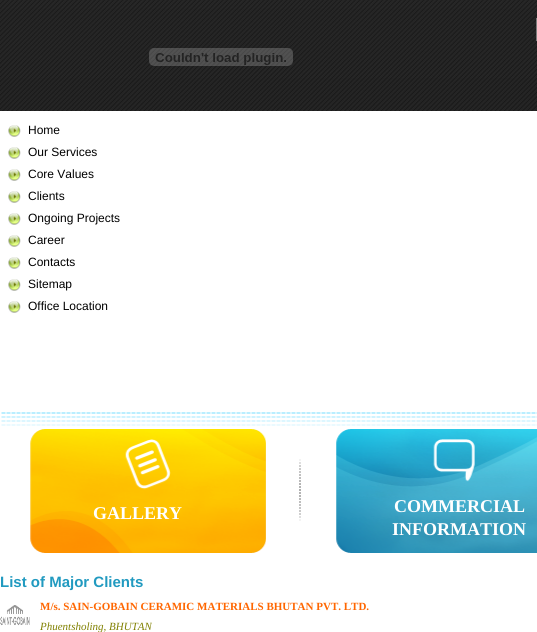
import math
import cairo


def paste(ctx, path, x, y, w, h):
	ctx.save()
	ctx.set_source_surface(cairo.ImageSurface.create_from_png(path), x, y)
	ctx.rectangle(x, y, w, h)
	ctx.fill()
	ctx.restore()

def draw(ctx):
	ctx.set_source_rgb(1, 1, 1)
	ctx.paint()
	paste(ctx, 'media/1.png', 0, 0, 537, 111)
	ctx.rectangle(536.5, 18.5, 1, 22)
	ctx.set_source_rgb(0.482, 0.482, 0.482)
	ctx.set_line_width(1)
	ctx.stroke()
	paste(ctx, 'media/2.png', 149, 48, 144, 18)
	paste(ctx, 'media/3.png', 8, 125, 13, 12)
	ctx.select_font_face('Liberation Sans')
	ctx.set_font_size(12)
	ctx.set_source_rgb(0, 0, 0)
	ctx.move_to(28, 134)
	ctx.show_text('Home')
	paste(ctx, 'media/3.png', 8, 147, 13, 12)
	ctx.move_to(28, 156)
	ctx.show_text('Our Services')
	paste(ctx, 'media/3.png', 8, 169, 13, 12)
	ctx.move_to(28, 178)
	ctx.show_text('Core Values')
	paste(ctx, 'media/3.png', 8, 191, 13, 12)
	ctx.move_to(28, 200)
	ctx.show_text('Clients')
	paste(ctx, 'media/3.png', 8, 213, 13, 12)
	ctx.move_to(28, 222)
	ctx.show_text('Ongoing Projects')
	paste(ctx, 'media/3.png', 8, 235, 13, 12)
	ctx.move_to(28, 244)
	ctx.show_text('Career')
	paste(ctx, 'media/3.png', 8, 257, 13, 12)
	ctx.move_to(28, 266)
	ctx.show_text('Contacts')
	paste(ctx, 'media/3.png', 8, 279, 13, 12)
	ctx.move_to(28, 288)
	ctx.show_text('Sitemap')
	paste(ctx, 'media/3.png', 8, 301, 13, 12)
	ctx.move_to(28, 310)
	ctx.show_text('Office Location')
	paste(ctx, 'media/4.png', 1, 412, 536, 14)
	paste(ctx, 'media/5.png', 30, 429, 236, 124)
	paste(ctx, 'media/6.png', 336, 429, 201, 124)
	ctx.select_font_face('Liberation Serif', cairo.FONT_SLANT_NORMAL, cairo.FONT_WEIGHT_BOLD)
	ctx.set_font_size(18)
	ctx.set_source_rgb(1, 1, 1)
	ctx.move_to(93, 519)
	ctx.show_text('GALLERY')
	paste(ctx, 'media/7.png', 299, 459, 2, 62)
	ctx.move_to(394, 512)
	ctx.show_text('COMMERCIAL')
	ctx.move_to(392, 535)
	ctx.show_text('INFORMATION')
	ctx.select_font_face('Liberation Sans', cairo.FONT_SLANT_NORMAL, cairo.FONT_WEIGHT_BOLD)
	ctx.set_font_size(15)
	ctx.set_source_rgb(0.129, 0.604, 0.753)
	ctx.move_to(0, 587)
	ctx.show_text('List of Major Clients')
	paste(ctx, 'media/8.png', 0, 605, 30, 21)
	ctx.select_font_face('Liberation Serif', cairo.FONT_SLANT_NORMAL, cairo.FONT_WEIGHT_BOLD)
	ctx.set_font_size(11)
	ctx.set_source_rgb(1, 0.4, 0)
	ctx.move_to(40, 610)
	ctx.show_text('M/s. SAIN-GOBAIN CERAMIC MATERIALS BHUTAN PVT. LTD.')
	ctx.select_font_face('Liberation Serif', cairo.FONT_SLANT_ITALIC)
	ctx.set_source_rgb(0.502, 0.502, 0)
	ctx.move_to(40, 630)
	ctx.show_text('Phuentsholing, BHUTAN')


surface = cairo.ImageSurface(cairo.FORMAT_RGB24, 537, 632)
ctx = cairo.Context(surface)
options = cairo.FontOptions()
options.set_hint_metrics(cairo.HINT_METRICS_OFF)
options.set_hint_style(cairo.HINT_STYLE_NONE)
ctx.set_font_options(options)
ctx.set_miter_limit(4)
draw(ctx)
surface.write_to_png('image.png')
